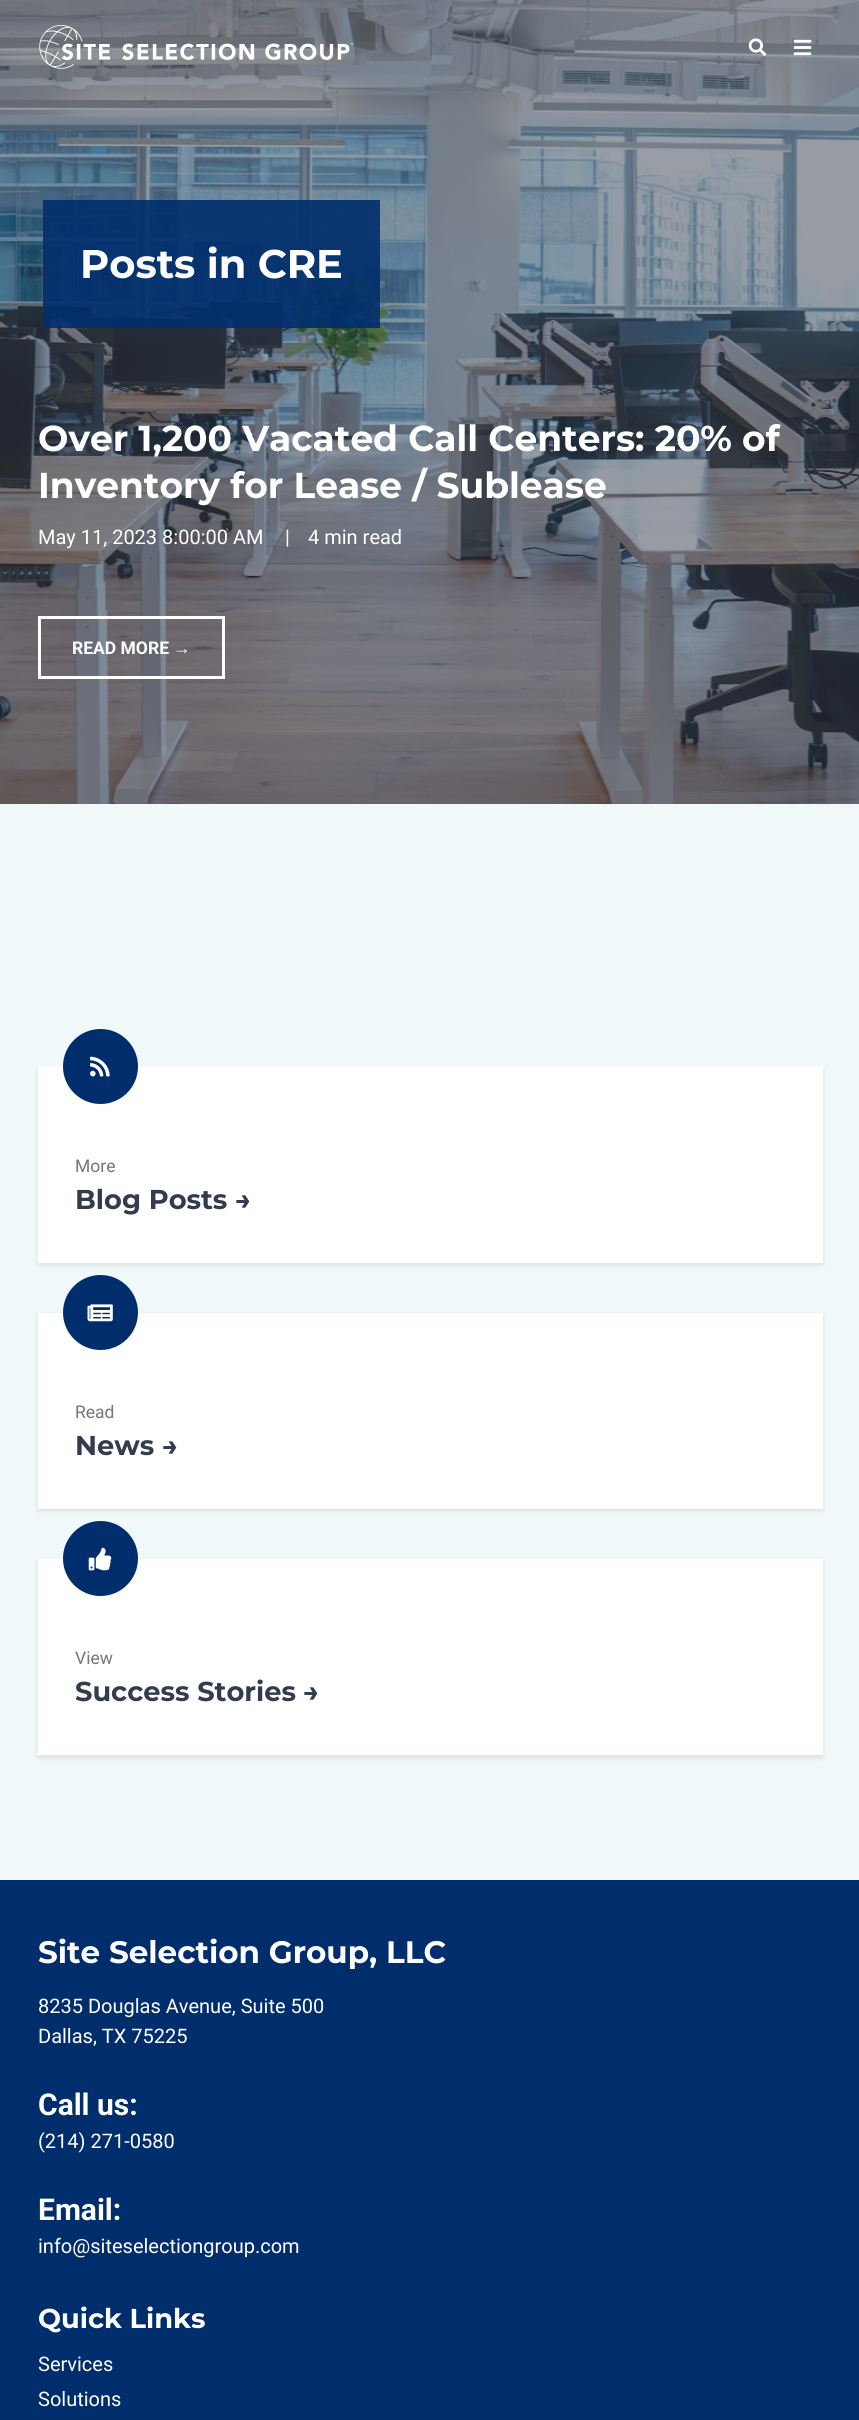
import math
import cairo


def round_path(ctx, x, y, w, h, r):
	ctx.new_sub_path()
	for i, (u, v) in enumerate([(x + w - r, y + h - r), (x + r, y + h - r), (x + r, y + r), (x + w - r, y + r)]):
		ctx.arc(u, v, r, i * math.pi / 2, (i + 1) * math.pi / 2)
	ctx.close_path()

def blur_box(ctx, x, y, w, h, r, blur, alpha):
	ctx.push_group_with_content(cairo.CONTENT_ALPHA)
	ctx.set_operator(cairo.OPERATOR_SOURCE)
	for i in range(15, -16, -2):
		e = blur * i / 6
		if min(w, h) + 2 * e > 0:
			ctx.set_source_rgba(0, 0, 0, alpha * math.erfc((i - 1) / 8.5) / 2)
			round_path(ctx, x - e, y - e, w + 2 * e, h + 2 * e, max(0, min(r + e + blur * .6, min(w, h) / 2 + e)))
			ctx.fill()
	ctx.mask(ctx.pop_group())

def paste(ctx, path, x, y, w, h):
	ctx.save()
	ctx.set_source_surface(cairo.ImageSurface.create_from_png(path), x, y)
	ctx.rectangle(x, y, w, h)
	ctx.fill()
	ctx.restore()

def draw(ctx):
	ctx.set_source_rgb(1, 1, 1)
	ctx.paint()
	paste(ctx, 'media/1.png', 0, 0, 859, 804)
	ctx.set_source_rgba(0.2, 0.235, 0.306, 0.5)
	ctx.rectangle(0, 0, 859, 804)
	ctx.fill()
	paste(ctx, 'media/2.png', 39, 25, 315, 44)
	paste(ctx, 'media/3.png', 748, 38, 19, 18)
	paste(ctx, 'media/4.png', 793, 39, 19, 17)
	ctx.set_source_rgba(0, 0.18, 0.427, 0.9)
	ctx.rectangle(43, 200, 337, 128)
	ctx.fill()
	ctx.select_font_face('Montserrat', cairo.FONT_SLANT_NORMAL, cairo.FONT_WEIGHT_BOLD)
	ctx.set_font_size(40)
	ctx.set_source_rgb(1, 1, 1)
	ctx.move_to(80, 278)
	ctx.show_text('Posts in CRE')
	ctx.set_font_size(36)
	ctx.move_to(38, 451)
	ctx.show_text('Over 1,200 Vacated Call Centers: 20% of')
	ctx.move_to(38, 498)
	ctx.show_text('Inventory for Lease / Sublease')
	ctx.select_font_face('Roboto')
	ctx.set_font_size(20)
	for x, y, s in [
		(38, 544, 'May 11, 2023 8:00:00 AM'),
		(285, 544, '|'),
		(308, 544, '4 min read'),
	]:
		ctx.move_to(x, y)
		ctx.show_text(s)
	ctx.rectangle(39.5, 617.5, 184, 60)
	ctx.set_line_width(3)
	ctx.stroke()
	ctx.select_font_face('Roboto', cairo.FONT_SLANT_NORMAL, cairo.FONT_WEIGHT_BOLD)
	ctx.set_font_size(17.5)
	ctx.move_to(72, 654)
	ctx.show_text('READ MORE')
	ctx.select_font_face('Liberation Sans', cairo.FONT_SLANT_NORMAL, cairo.FONT_WEIGHT_BOLD)
	ctx.move_to(173, 654)
	ctx.show_text('→')
	ctx.set_source_rgb(0.941, 0.969, 0.976)
	ctx.rectangle(0, 804, 859, 1076)
	ctx.fill()
	ctx.set_source_rgb(0, 0, 0)
	blur_box(ctx, 38, 1069, 785, 196, 0, 2.5, 0.1)
	ctx.set_source_rgb(1, 1, 1)
	ctx.rectangle(38, 1066, 785, 197)
	ctx.fill()
	ctx.set_source_rgb(0, 0.18, 0.427)
	ctx.arc(100.5, 1066.5, 37.5, 0, 2 * math.pi)
	ctx.fill()
	paste(ctx, 'media/5.png', 90, 1056, 20, 21)
	ctx.select_font_face('Roboto')
	ctx.set_source_rgb(0.443, 0.467, 0.478)
	ctx.move_to(75, 1172)
	ctx.show_text('More')
	ctx.select_font_face('Montserrat', cairo.FONT_SLANT_NORMAL, cairo.FONT_WEIGHT_BOLD)
	ctx.set_font_size(27.25)
	ctx.set_source_rgb(0.2, 0.235, 0.306)
	ctx.move_to(75, 1209)
	ctx.show_text('Blog Posts')
	ctx.select_font_face('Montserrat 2', cairo.FONT_SLANT_NORMAL, cairo.FONT_WEIGHT_BOLD)
	ctx.move_to(235, 1209)
	ctx.show_text('→')
	ctx.set_source_rgb(0, 0, 0)
	blur_box(ctx, 38, 1315, 785, 196, 0, 2.5, 0.1)
	ctx.set_source_rgb(1, 1, 1)
	ctx.rectangle(38, 1313, 785, 196)
	ctx.fill()
	ctx.set_source_rgb(0, 0.18, 0.427)
	ctx.arc(100.5, 1312.5, 37.5, 0, 2 * math.pi)
	ctx.fill()
	paste(ctx, 'media/6.png', 87, 1304, 26, 18)
	ctx.select_font_face('Roboto')
	ctx.set_font_size(17.5)
	ctx.set_source_rgb(0.443, 0.467, 0.478)
	ctx.move_to(75, 1418)
	ctx.show_text('Read')
	ctx.select_font_face('Montserrat', cairo.FONT_SLANT_NORMAL, cairo.FONT_WEIGHT_BOLD)
	ctx.set_font_size(27.25)
	ctx.set_source_rgb(0.2, 0.235, 0.306)
	ctx.move_to(75, 1455)
	ctx.show_text('News')
	ctx.select_font_face('Montserrat 2', cairo.FONT_SLANT_NORMAL, cairo.FONT_WEIGHT_BOLD)
	ctx.move_to(162, 1455)
	ctx.show_text('→')
	ctx.set_source_rgb(0, 0, 0)
	blur_box(ctx, 38, 1561, 785, 197, 0, 2.5, 0.1)
	ctx.set_source_rgb(1, 1, 1)
	ctx.rectangle(38, 1559, 785, 196)
	ctx.fill()
	ctx.set_source_rgb(0, 0.18, 0.427)
	ctx.arc(100.5, 1558.5, 37.5, 0, 2 * math.pi)
	ctx.fill()
	paste(ctx, 'media/7.png', 88, 1547, 24, 24)
	ctx.select_font_face('Roboto')
	ctx.set_font_size(17.5)
	ctx.set_source_rgb(0.443, 0.467, 0.478)
	ctx.move_to(75, 1664)
	ctx.show_text('View')
	ctx.select_font_face('Montserrat', cairo.FONT_SLANT_NORMAL, cairo.FONT_WEIGHT_BOLD)
	ctx.set_font_size(27.25)
	ctx.set_source_rgb(0.2, 0.235, 0.306)
	ctx.move_to(75, 1701)
	ctx.show_text('Success Stories')
	ctx.select_font_face('Montserrat 2', cairo.FONT_SLANT_NORMAL, cairo.FONT_WEIGHT_BOLD)
	ctx.move_to(303, 1701)
	ctx.show_text('→')
	ctx.set_source_rgb(0, 0.18, 0.427)
	ctx.rectangle(0, 1880, 859, 540)
	ctx.fill()
	ctx.select_font_face('Montserrat', cairo.FONT_SLANT_NORMAL, cairo.FONT_WEIGHT_BOLD)
	ctx.set_font_size(31)
	ctx.set_source_rgb(1, 1, 1)
	ctx.move_to(38, 1963)
	ctx.show_text('Site Selection Group, LLC')
	ctx.select_font_face('Roboto')
	ctx.set_font_size(20)
	ctx.move_to(38, 2013)
	ctx.show_text('8235 Douglas Avenue, Suite 500')
	ctx.move_to(38, 2043)
	ctx.show_text('Dallas, TX 75225')
	ctx.select_font_face('Roboto', cairo.FONT_SLANT_NORMAL, cairo.FONT_WEIGHT_BOLD)
	ctx.set_font_size(30)
	ctx.move_to(38, 2115)
	ctx.show_text('Call us:')
	ctx.select_font_face('Roboto')
	ctx.set_font_size(20)
	ctx.move_to(38, 2148)
	ctx.show_text('(214) 271-0580')
	ctx.select_font_face('Roboto', cairo.FONT_SLANT_NORMAL, cairo.FONT_WEIGHT_BOLD)
	ctx.set_font_size(30)
	ctx.move_to(38, 2220)
	ctx.show_text('Email:')
	ctx.select_font_face('Roboto')
	ctx.set_font_size(20)
	ctx.move_to(38, 2253)
	ctx.show_text('info@siteselectiongroup.com')
	ctx.select_font_face('Montserrat', cairo.FONT_SLANT_NORMAL, cairo.FONT_WEIGHT_BOLD)
	ctx.set_font_size(27.25)
	ctx.move_to(38, 2328)
	ctx.show_text('Quick Links')
	ctx.select_font_face('Roboto')
	ctx.set_font_size(20)
	ctx.move_to(38, 2371)
	ctx.show_text('Services')
	ctx.move_to(38, 2406)
	ctx.show_text('Solutions')


surface = cairo.ImageSurface(cairo.FORMAT_RGB24, 859, 2420)
ctx = cairo.Context(surface)
options = cairo.FontOptions()
options.set_hint_metrics(cairo.HINT_METRICS_OFF)
options.set_hint_style(cairo.HINT_STYLE_NONE)
ctx.set_font_options(options)
ctx.set_miter_limit(4)
draw(ctx)
surface.write_to_png('image.png')
